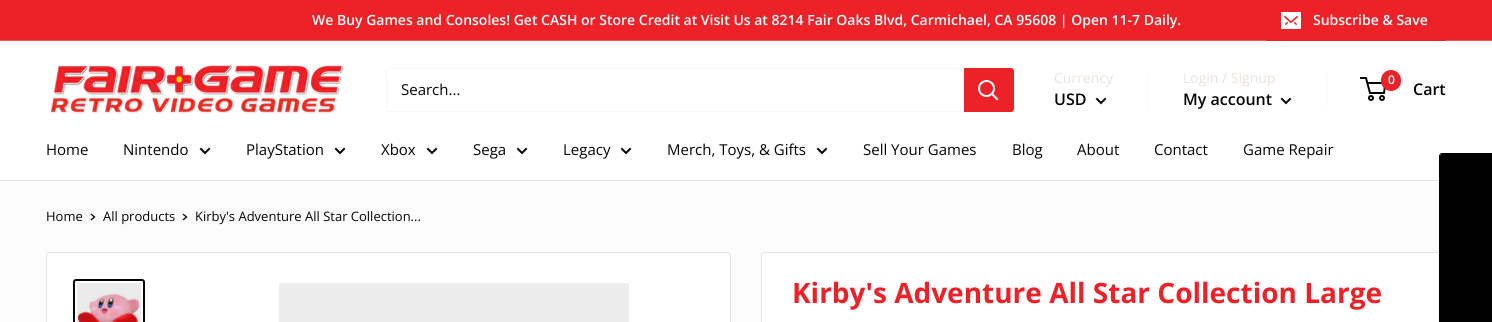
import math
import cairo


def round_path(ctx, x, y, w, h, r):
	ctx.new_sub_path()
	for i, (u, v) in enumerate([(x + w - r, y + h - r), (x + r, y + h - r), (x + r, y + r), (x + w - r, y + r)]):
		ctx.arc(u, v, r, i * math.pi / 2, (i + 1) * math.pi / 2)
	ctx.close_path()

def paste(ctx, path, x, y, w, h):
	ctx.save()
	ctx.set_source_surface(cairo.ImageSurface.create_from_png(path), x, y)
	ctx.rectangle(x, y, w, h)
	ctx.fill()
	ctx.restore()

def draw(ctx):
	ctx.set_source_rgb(0.988, 0.988, 0.988)
	ctx.paint()
	ctx.set_source_rgb(0.929, 0.133, 0.157)
	ctx.rectangle(0, 0, 1492, 40)
	ctx.fill()
	ctx.set_source_rgb(0.925, 0.361, 0.369)
	ctx.rectangle(0, 40, 1492, 1)
	ctx.fill()
	ctx.select_font_face('Open Sans SemiBold')
	ctx.set_font_size(14)
	ctx.set_source_rgb(1, 1, 1)
	ctx.move_to(312, 25)
	ctx.show_text('We Buy Games and Consoles! Get CASH or Store Credit at Visit Us at 8214 Fair Oaks Blvd, Carmichael, CA 95608 | Open 11-7 Daily.')
	ctx.set_source_rgb(0.929, 0.133, 0.157)
	ctx.rectangle(1266, 40, 180, 1)
	ctx.fill()
	paste(ctx, 'media/1.png', 1281, 12, 20, 17)
	ctx.set_source_rgb(1, 1, 1)
	ctx.move_to(1313, 25)
	ctx.show_text('Subscribe & Save')
	ctx.rectangle(0, 41, 1492, 139)
	ctx.fill()
	paste(ctx, 'media/2.png', 50, 65, 294, 49)
	ctx.set_source_rgb(0.973, 0.965, 0.961)
	ctx.new_path()
	ctx.move_to(387, 111)
	ctx.curve_to(387, 112, 388, 112, 389, 112)
	ctx.line_to(1011, 112)
	ctx.curve_to(1013, 112, 1014, 111, 1014, 109)
	ctx.line_to(1014, 71)
	ctx.curve_to(1014, 70, 1014, 69, 1013, 69)
	ctx.line_to(1013, 102)
	ctx.curve_to(1013, 104, 1015, 111, 1010, 111)
	ctx.close_path()
	ctx.fill()
	ctx.new_path()
	ctx.move_to(390, 69)
	ctx.line_to(1013, 69)
	ctx.curve_to(1013, 68, 1012, 68, 1011, 68)
	ctx.line_to(389, 68)
	ctx.curve_to(387, 68, 386, 69, 386, 71)
	ctx.line_to(386, 109)
	ctx.curve_to(386, 110, 386, 111, 387, 111)
	ctx.line_to(387, 78)
	ctx.curve_to(387, 76, 385, 69, 390, 69)
	ctx.close_path()
	ctx.fill()
	ctx.select_font_face('Open Sans')
	ctx.set_font_size(15)
	ctx.set_source_rgb(0.02, 0.02, 0.02)
	ctx.move_to(401, 95)
	ctx.show_text('Search...')
	ctx.set_source_rgb(0.929, 0.133, 0.157)
	ctx.new_path()
	ctx.move_to(964, 68)
	ctx.line_to(1011, 68)
	ctx.curve_to(1012.5, 68, 1014, 69.5, 1014, 71)
	ctx.line_to(1014, 109)
	ctx.curve_to(1014, 110.5, 1012.5, 112, 1011, 112)
	ctx.line_to(964, 112)
	ctx.close_path()
	ctx.fill()
	ctx.new_path()
	ctx.move_to(997, 99)
	ctx.line_to(992, 94)
	ctx.set_source_rgb(1, 1, 1)
	ctx.set_line_cap(cairo.LINE_CAP_SQUARE)
	ctx.stroke()
	ctx.arc(986.5, 88.5, 7.5, 0, 2 * math.pi)
	ctx.set_line_cap(cairo.LINE_CAP_BUTT)
	ctx.stroke()
	ctx.set_font_size(14)
	ctx.set_source_rgb(0.914, 0.886, 0.867)
	ctx.move_to(1054, 83)
	ctx.show_text('Currency')
	ctx.set_source_rgb(0.973, 0.965, 0.961)
	ctx.rectangle(1147, 73, 1, 34)
	ctx.fill()
	ctx.select_font_face('Open Sans SemiBold')
	ctx.set_font_size(16)
	ctx.set_source_rgb(0.02, 0.02, 0.02)
	ctx.move_to(1054, 105)
	ctx.show_text('USD')
	ctx.new_path()
	ctx.move_to(1105, 99)
	ctx.line_to(1101, 103)
	ctx.line_to(1097, 99)
	ctx.set_line_cap(cairo.LINE_CAP_SQUARE)
	ctx.stroke()
	ctx.select_font_face('Open Sans')
	ctx.set_font_size(14)
	ctx.set_source_rgb(0.914, 0.886, 0.867)
	ctx.move_to(1183, 83)
	ctx.show_text('Login / Signup')
	ctx.set_source_rgb(0.973, 0.965, 0.961)
	ctx.rectangle(1326, 73, 1, 34)
	ctx.fill()
	ctx.select_font_face('Open Sans SemiBold')
	ctx.set_font_size(16)
	ctx.set_source_rgb(0.02, 0.02, 0.02)
	ctx.move_to(1183, 105)
	ctx.show_text('My account')
	ctx.new_path()
	ctx.move_to(1290, 99)
	ctx.line_to(1286, 103)
	ctx.line_to(1282, 99)
	ctx.stroke()
	ctx.arc(1371, 98, 2, 0, 2 * math.pi)
	ctx.set_line_cap(cairo.LINE_CAP_BUTT)
	ctx.stroke()
	ctx.arc(1382, 98, 2, 0, 2 * math.pi)
	ctx.stroke()
	ctx.new_path()
	ctx.move_to(1367.5, 83)
	ctx.line_to(1385.5, 83)
	ctx.line_to(1384, 93)
	ctx.line_to(1370, 93)
	ctx.line_to(1366, 78)
	ctx.line_to(1360, 78)
	ctx.stroke()
	ctx.set_source_rgb(0.929, 0.133, 0.157)
	round_path(ctx, 1381, 70, 20, 21, 10)
	ctx.fill()
	ctx.set_font_size(12)
	ctx.set_source_rgb(1, 1, 1)
	ctx.move_to(1388, 84)
	ctx.show_text('0')
	ctx.set_font_size(16)
	ctx.set_source_rgb(0.02, 0.02, 0.02)
	ctx.move_to(1413, 95)
	ctx.show_text('Cart')
	ctx.set_source_rgb(0.906, 0.886, 0.871)
	ctx.rectangle(0, 180, 1439, 1)
	ctx.fill()
	ctx.select_font_face('Open Sans')
	ctx.set_font_size(15)
	ctx.set_source_rgb(0.02, 0.02, 0.02)
	ctx.move_to(46, 155)
	ctx.show_text('Home')
	ctx.move_to(123, 155)
	ctx.show_text('Nintendo')
	ctx.new_path()
	ctx.move_to(209, 149)
	ctx.line_to(205, 153)
	ctx.line_to(201, 149)
	ctx.set_line_cap(cairo.LINE_CAP_SQUARE)
	ctx.stroke()
	ctx.move_to(246, 155)
	ctx.show_text('PlayStation')
	ctx.new_path()
	ctx.move_to(344, 149)
	ctx.line_to(340, 153)
	ctx.line_to(336, 149)
	ctx.stroke()
	ctx.move_to(381, 155)
	ctx.show_text('Xbox')
	ctx.new_path()
	ctx.move_to(436, 149)
	ctx.line_to(432, 153)
	ctx.line_to(428, 149)
	ctx.stroke()
	ctx.move_to(473, 155)
	ctx.show_text('Sega')
	ctx.new_path()
	ctx.move_to(526, 149)
	ctx.line_to(522, 153)
	ctx.line_to(518, 149)
	ctx.stroke()
	ctx.move_to(563, 155)
	ctx.show_text('Legacy')
	ctx.new_path()
	ctx.move_to(630, 149)
	ctx.line_to(626, 153)
	ctx.line_to(622, 149)
	ctx.stroke()
	ctx.move_to(667, 155)
	ctx.show_text('Merch, Toys, & Gifts')
	ctx.new_path()
	ctx.move_to(826, 149)
	ctx.line_to(822, 153)
	ctx.line_to(818, 149)
	ctx.stroke()
	for x, y, s in [
		(863, 155, 'Sell Your Games'),
		(1012, 155, 'Blog'),
		(1077, 155, 'About'),
		(1154, 155, 'Contact'),
		(1243, 155, 'Game Repair'),
	]:
		ctx.move_to(x, y)
		ctx.show_text(s)
	ctx.set_font_size(13)
	ctx.move_to(46, 221)
	ctx.show_text('Home')
	ctx.new_path()
	ctx.move_to(91.5, 214.5)
	ctx.line_to(94.5, 217)
	ctx.line_to(91.5, 219.5)
	ctx.set_line_width(1.3)
	ctx.stroke()
	ctx.move_to(103, 221)
	ctx.show_text('All products')
	ctx.new_path()
	ctx.move_to(183.5, 214.5)
	ctx.line_to(186.5, 217)
	ctx.line_to(183.5, 219.5)
	ctx.stroke()
	ctx.move_to(195, 221)
	ctx.show_text('Kirby\'s Adventure All Star Collection...')
	ctx.set_source_rgb(1, 1, 1)
	round_path(ctx, 46.5, 252.5, 684, 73, 2.5)
	ctx.fill_preserve()
	ctx.set_source_rgb(0.906, 0.886, 0.871)
	ctx.set_line_width(1)
	ctx.set_line_cap(cairo.LINE_CAP_BUTT)
	ctx.stroke()
	round_path(ctx, 74, 280, 70, 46, 2)
	ctx.set_source_rgb(0.02, 0.02, 0.02)
	ctx.set_line_width(2)
	ctx.stroke()
	paste(ctx, 'media/3.png', 77, 283, 64, 39)
	ctx.set_source_rgb(0.922, 0.922, 0.922)
	ctx.rectangle(279, 283, 350, 39)
	ctx.fill()
	ctx.set_source_rgb(1, 1, 1)
	round_path(ctx, 761.5, 252.5, 684, 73, 2.5)
	ctx.fill_preserve()
	ctx.set_source_rgb(0.906, 0.886, 0.871)
	ctx.set_line_width(1)
	ctx.stroke()
	ctx.select_font_face('Open Sans', cairo.FONT_SLANT_NORMAL, cairo.FONT_WEIGHT_BOLD)
	ctx.set_font_size(28)
	ctx.set_source_rgb(0.929, 0.133, 0.157)
	ctx.move_to(792, 303)
	ctx.show_text('Kirby\'s Adventure All Star Collection Large')
	ctx.set_source_rgb(0, 0, 0)
	ctx.new_path()
	ctx.move_to(1440, 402)
	ctx.line_to(1440, 156)
	ctx.curve_to(1440, 155, 1441, 154, 1442, 154)
	ctx.line_to(1492, 154)
	ctx.line_to(1492, 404)
	ctx.line_to(1442, 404)
	ctx.curve_to(1441, 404, 1440, 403, 1440, 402)
	ctx.close_path()
	ctx.fill()
	ctx.set_fill_rule(cairo.FILL_RULE_EVEN_ODD)
	ctx.new_path()
	ctx.move_to(1439, 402)
	ctx.line_to(1439, 156)
	ctx.curve_to(1439, 155, 1440, 153, 1442, 153)
	ctx.line_to(1492, 153)
	ctx.line_to(1492, 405)
	ctx.line_to(1442, 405)
	ctx.curve_to(1440, 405, 1439, 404, 1439, 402)
	ctx.close_path()
	ctx.move_to(1440, 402)
	ctx.line_to(1440, 156)
	ctx.curve_to(1440, 155, 1441, 154, 1442, 154)
	ctx.line_to(1492, 154)
	ctx.line_to(1492, 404)
	ctx.line_to(1442, 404)
	ctx.curve_to(1441, 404, 1440, 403, 1440, 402)
	ctx.close_path()
	ctx.fill()


surface = cairo.ImageSurface(cairo.FORMAT_RGB24, 1492, 322)
ctx = cairo.Context(surface)
options = cairo.FontOptions()
options.set_hint_metrics(cairo.HINT_METRICS_OFF)
options.set_hint_style(cairo.HINT_STYLE_NONE)
ctx.set_font_options(options)
ctx.set_miter_limit(4)
draw(ctx)
surface.write_to_png('image.png')
